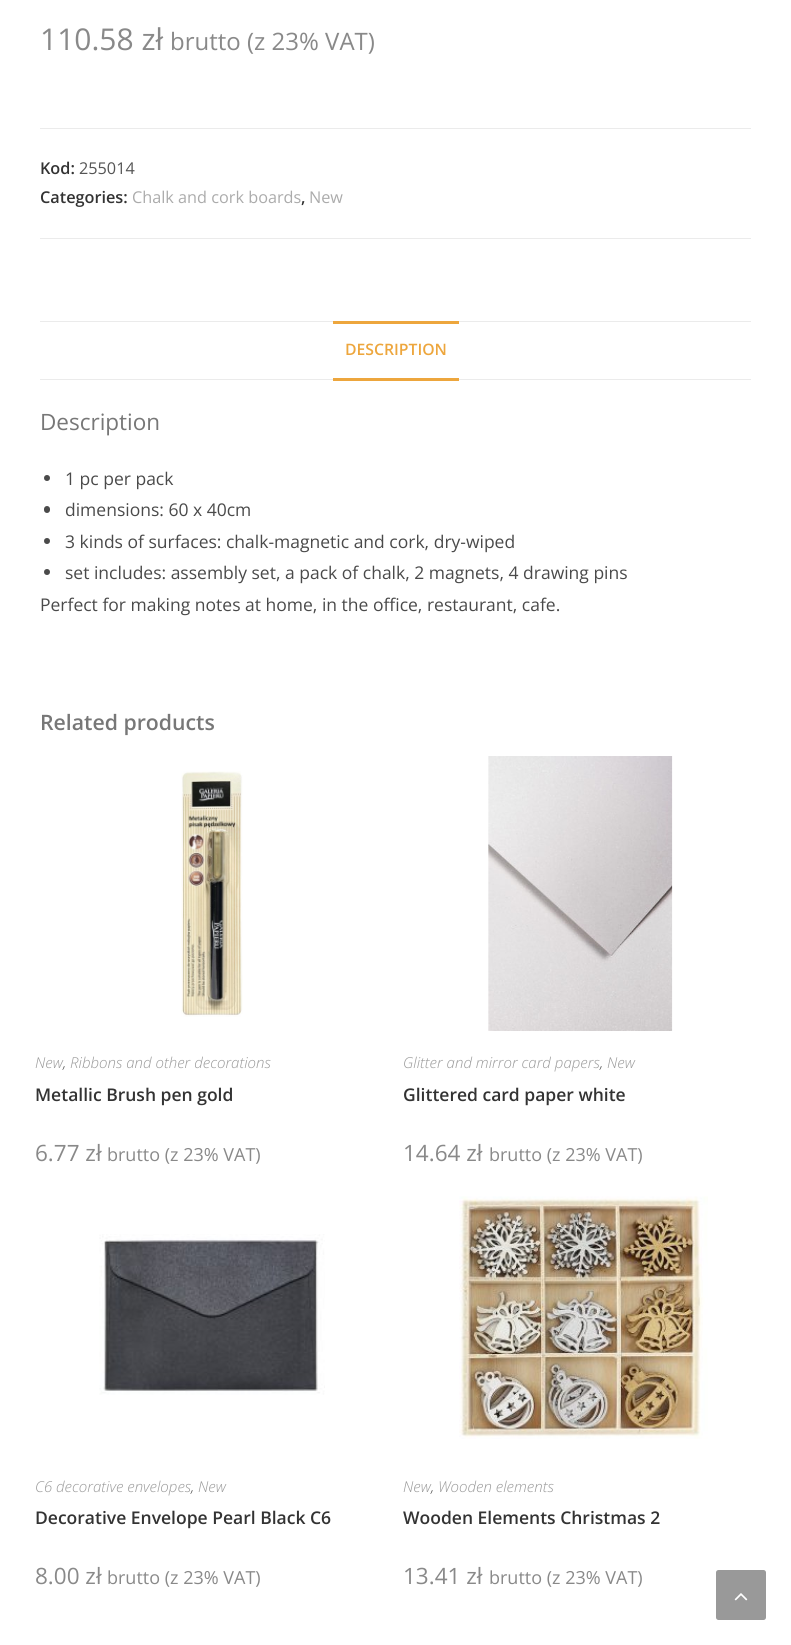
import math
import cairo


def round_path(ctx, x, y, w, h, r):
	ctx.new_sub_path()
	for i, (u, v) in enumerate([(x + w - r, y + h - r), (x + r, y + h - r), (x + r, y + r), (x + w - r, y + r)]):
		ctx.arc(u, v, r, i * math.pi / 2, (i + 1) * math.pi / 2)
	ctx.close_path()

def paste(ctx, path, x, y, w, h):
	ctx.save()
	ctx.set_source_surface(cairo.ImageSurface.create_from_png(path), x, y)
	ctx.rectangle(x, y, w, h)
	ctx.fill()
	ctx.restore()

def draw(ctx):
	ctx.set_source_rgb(1, 1, 1)
	ctx.paint()
	ctx.select_font_face('Open Sans')
	ctx.set_font_size(30)
	ctx.set_source_rgb(0.537, 0.537, 0.537)
	ctx.move_to(40, 50)
	ctx.show_text('110.58 zł')
	ctx.set_font_size(24)
	ctx.move_to(170, 50)
	ctx.show_text('brutto (z 23% VAT)')
	ctx.set_source_rgb(0.918, 0.918, 0.918)
	ctx.rectangle(40, 128, 711, 1)
	ctx.fill()
	ctx.rectangle(40, 238, 711, 1)
	ctx.fill()
	ctx.select_font_face('Open Sans SemiBold')
	ctx.set_font_size(16.25)
	ctx.set_source_rgb(0.2, 0.2, 0.2)
	ctx.move_to(40, 174)
	ctx.show_text('Kod:')
	ctx.select_font_face('Open Sans')
	ctx.set_source_rgb(0.333, 0.333, 0.333)
	ctx.move_to(79, 174)
	ctx.show_text('255014')
	ctx.select_font_face('Open Sans SemiBold')
	ctx.set_source_rgb(0.2, 0.2, 0.2)
	ctx.move_to(40, 203)
	ctx.show_text('Categories:')
	ctx.select_font_face('Open Sans')
	ctx.set_source_rgb(0.671, 0.671, 0.671)
	ctx.move_to(132, 203)
	ctx.show_text('Chalk and cork boards')
	ctx.select_font_face('Open Sans SemiBold')
	ctx.set_source_rgb(0.2, 0.2, 0.2)
	ctx.move_to(301, 203)
	ctx.show_text(',')
	ctx.select_font_face('Open Sans')
	ctx.set_source_rgb(0.671, 0.671, 0.671)
	ctx.move_to(309, 203)
	ctx.show_text('New')
	ctx.set_source_rgb(0.918, 0.918, 0.918)
	ctx.rectangle(40, 321, 711, 1)
	ctx.rectangle(40, 379, 711, 1)
	ctx.fill()
	ctx.set_source_rgb(0.929, 0.651, 0.239)
	ctx.rectangle(333, 321, 126, 3)
	ctx.rectangle(333, 378, 126, 3)
	ctx.fill()
	ctx.select_font_face('Open Sans SemiBold')
	ctx.set_font_size(15.75)
	ctx.move_to(345, 355)
	ctx.show_text('DESCRIPTION')
	ctx.select_font_face('Open Sans')
	ctx.set_font_size(22.5)
	ctx.set_source_rgb(0.467, 0.467, 0.467)
	ctx.move_to(40, 430)
	ctx.show_text('Description')
	ctx.set_source_rgb(0.29, 0.29, 0.29)
	ctx.new_path()
	ctx.arc(47, 478, 3, 0, 2 * math.pi)
	ctx.fill()
	ctx.set_font_size(17.5)
	ctx.move_to(65, 485)
	ctx.show_text('1 pc per pack')
	round_path(ctx, 44, 506, 6, 7, 3)
	ctx.fill()
	ctx.move_to(65, 516)
	ctx.show_text('dimensions: 60 x 40cm')
	ctx.new_path()
	ctx.arc(47, 541, 3, 0, 2 * math.pi)
	ctx.fill()
	ctx.move_to(65, 548)
	ctx.show_text('3 kinds of surfaces: chalk-magnetic and cork, dry-wiped')
	ctx.new_path()
	ctx.arc(47, 572, 3, 0, 2 * math.pi)
	ctx.fill()
	ctx.move_to(65, 579)
	ctx.show_text('set includes: assembly set, a pack of chalk, 2 magnets, 4 drawing pins')
	ctx.move_to(40, 611)
	ctx.show_text('Perfect for making notes at home, in the office, restaurant, cafe.')
	ctx.select_font_face('Open Sans SemiBold')
	ctx.set_font_size(21.25)
	ctx.set_source_rgb(0.467, 0.467, 0.467)
	ctx.move_to(40, 730)
	ctx.show_text('Related products')
	paste(ctx, 'media/1.png', 181, 771, 62, 246)
	ctx.select_font_face('Open Sans Light', cairo.FONT_SLANT_ITALIC)
	ctx.set_font_size(15)
	ctx.set_source_rgb(0.6, 0.6, 0.6)
	ctx.move_to(35, 1068)
	ctx.show_text('New')
	ctx.move_to(70, 1068)
	ctx.show_text('Ribbons and other decorations')
	ctx.set_source_rgb(0.29, 0.29, 0.29)
	ctx.move_to(63, 1068)
	ctx.show_text(',')
	ctx.select_font_face('Open Sans SemiBold')
	ctx.set_font_size(17.5)
	ctx.set_source_rgb(0.2, 0.2, 0.2)
	ctx.move_to(35, 1101)
	ctx.show_text('Metallic Brush pen gold')
	ctx.select_font_face('Open Sans')
	ctx.set_font_size(22.5)
	ctx.set_source_rgb(0.537, 0.537, 0.537)
	ctx.move_to(35, 1161)
	ctx.show_text('6.77 zł')
	ctx.set_font_size(18)
	ctx.move_to(107, 1161)
	ctx.show_text('brutto (z 23% VAT)')
	paste(ctx, 'media/2.png', 488, 756, 185, 275)
	ctx.select_font_face('Open Sans Light', cairo.FONT_SLANT_ITALIC)
	ctx.set_font_size(15)
	ctx.set_source_rgb(0.6, 0.6, 0.6)
	ctx.move_to(403, 1068)
	ctx.show_text('Glitter and mirror card papers')
	ctx.set_source_rgb(0.29, 0.29, 0.29)
	ctx.move_to(600, 1068)
	ctx.show_text(',')
	ctx.set_source_rgb(0.6, 0.6, 0.6)
	ctx.move_to(607, 1068)
	ctx.show_text('New')
	ctx.select_font_face('Open Sans SemiBold')
	ctx.set_font_size(17.5)
	ctx.set_source_rgb(0.2, 0.2, 0.2)
	ctx.move_to(403, 1101)
	ctx.show_text('Glittered card paper white')
	ctx.select_font_face('Open Sans')
	ctx.set_font_size(22.5)
	ctx.set_source_rgb(0.537, 0.537, 0.537)
	ctx.move_to(403, 1161)
	ctx.show_text('14.64 zł')
	ctx.set_font_size(18)
	ctx.move_to(489, 1161)
	ctx.show_text('brutto (z 23% VAT)')
	paste(ctx, 'media/3.png', 99, 1234, 226, 161)
	ctx.select_font_face('Open Sans Light', cairo.FONT_SLANT_ITALIC)
	ctx.set_font_size(15)
	ctx.set_source_rgb(0.6, 0.6, 0.6)
	ctx.move_to(35, 1492)
	ctx.show_text('C6 decorative envelopes')
	ctx.set_source_rgb(0.29, 0.29, 0.29)
	ctx.move_to(191, 1492)
	ctx.show_text(',')
	ctx.set_source_rgb(0.6, 0.6, 0.6)
	ctx.move_to(198, 1492)
	ctx.show_text('New')
	ctx.select_font_face('Open Sans SemiBold')
	ctx.set_font_size(17.5)
	ctx.set_source_rgb(0.2, 0.2, 0.2)
	ctx.move_to(35, 1524)
	ctx.show_text('Decorative Envelope Pearl Black C6')
	ctx.select_font_face('Open Sans')
	ctx.set_font_size(22.5)
	ctx.set_source_rgb(0.537, 0.537, 0.537)
	ctx.move_to(35, 1584)
	ctx.show_text('8.00 zł')
	ctx.set_font_size(18)
	ctx.move_to(107, 1584)
	ctx.show_text('brutto (z 23% VAT)')
	paste(ctx, 'media/4.png', 459, 1196, 249, 243)
	ctx.select_font_face('Open Sans Light', cairo.FONT_SLANT_ITALIC)
	ctx.set_font_size(15)
	ctx.set_source_rgb(0.6, 0.6, 0.6)
	ctx.move_to(403, 1492)
	ctx.show_text('New')
	ctx.move_to(438, 1492)
	ctx.show_text('Wooden elements')
	ctx.set_source_rgb(0.29, 0.29, 0.29)
	ctx.move_to(431, 1492)
	ctx.show_text(',')
	ctx.select_font_face('Open Sans SemiBold')
	ctx.set_font_size(17.5)
	ctx.set_source_rgb(0.2, 0.2, 0.2)
	ctx.move_to(403, 1524)
	ctx.show_text('Wooden Elements Christmas 2')
	ctx.select_font_face('Open Sans')
	ctx.set_font_size(22.5)
	ctx.set_source_rgb(0.537, 0.537, 0.537)
	ctx.move_to(403, 1584)
	ctx.show_text('13.41 zł')
	ctx.set_font_size(18)
	ctx.move_to(489, 1584)
	ctx.show_text('brutto (z 23% VAT)')
	ctx.set_source_rgb(0.6, 0.6, 0.6)
	round_path(ctx, 716, 1570, 50, 50, 2.5)
	ctx.fill()
	paste(ctx, 'media/5.png', 734, 1593, 14, 8)


surface = cairo.ImageSurface(cairo.FORMAT_RGB24, 791, 1645)
ctx = cairo.Context(surface)
options = cairo.FontOptions()
options.set_hint_metrics(cairo.HINT_METRICS_OFF)
options.set_hint_style(cairo.HINT_STYLE_NONE)
ctx.set_font_options(options)
ctx.set_miter_limit(4)
draw(ctx)
surface.write_to_png('image.png')
